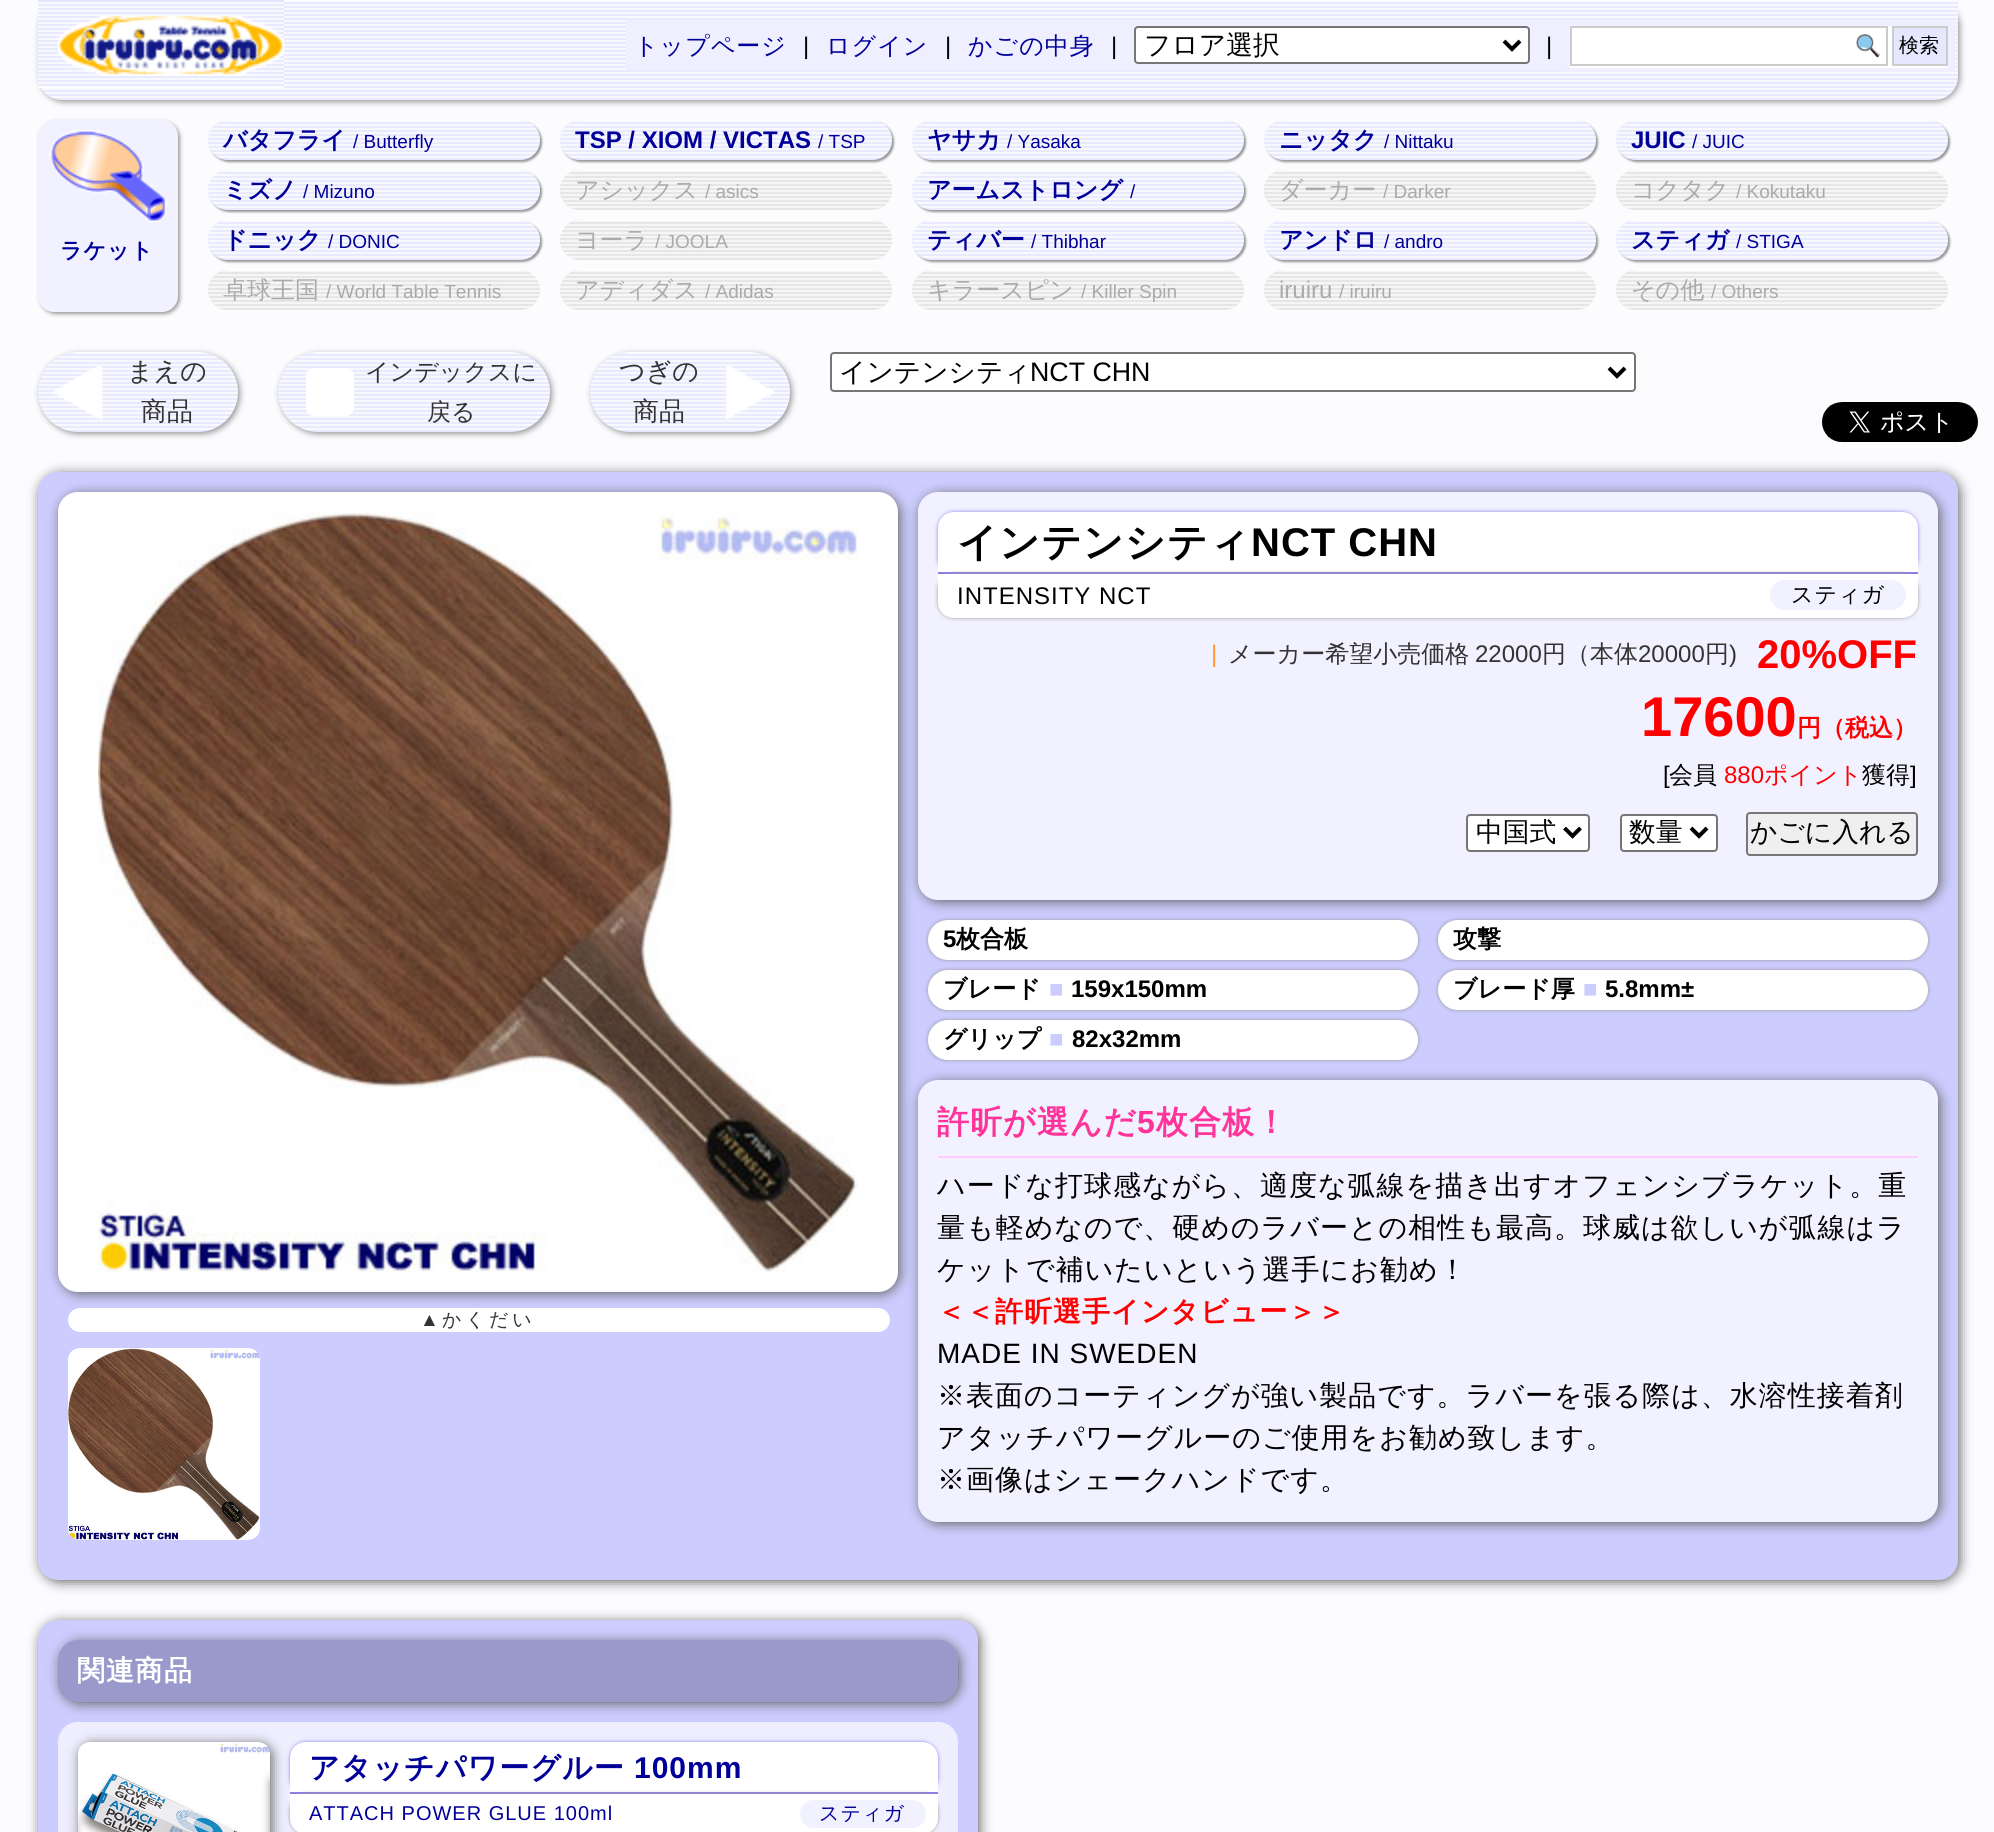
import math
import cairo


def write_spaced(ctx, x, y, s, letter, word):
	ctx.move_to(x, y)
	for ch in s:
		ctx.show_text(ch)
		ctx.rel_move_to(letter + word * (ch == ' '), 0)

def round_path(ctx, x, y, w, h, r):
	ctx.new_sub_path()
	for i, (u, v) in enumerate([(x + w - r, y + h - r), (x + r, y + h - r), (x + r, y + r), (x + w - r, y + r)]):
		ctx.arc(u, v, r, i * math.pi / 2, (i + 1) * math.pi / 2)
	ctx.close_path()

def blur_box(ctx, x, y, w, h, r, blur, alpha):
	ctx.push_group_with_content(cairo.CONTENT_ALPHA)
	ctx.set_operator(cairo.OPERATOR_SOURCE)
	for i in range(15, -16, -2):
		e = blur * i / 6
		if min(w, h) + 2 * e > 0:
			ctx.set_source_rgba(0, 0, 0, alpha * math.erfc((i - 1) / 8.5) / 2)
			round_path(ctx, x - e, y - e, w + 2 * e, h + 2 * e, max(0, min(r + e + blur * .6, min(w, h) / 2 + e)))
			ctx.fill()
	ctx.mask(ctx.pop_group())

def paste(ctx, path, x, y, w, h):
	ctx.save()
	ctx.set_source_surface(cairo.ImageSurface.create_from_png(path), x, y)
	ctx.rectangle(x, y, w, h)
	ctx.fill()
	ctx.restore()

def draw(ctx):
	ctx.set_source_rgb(0.988, 0.988, 1)
	ctx.paint()
	ctx.set_source_rgb(0.6, 0.6, 0.6)
	blur_box(ctx, 40, 2, 1920, 100, 24, 3, 1)
	ctx.set_source_rgb(0.89, 0.89, 1)
	ctx.new_path()
	ctx.move_to(38, 0)
	ctx.line_to(1958, 0)
	ctx.line_to(1958, 76)
	ctx.curve_to(1958, 89.5, 1947.5, 100, 1934, 100)
	ctx.line_to(62, 100)
	ctx.curve_to(48.5, 100, 38, 89.5, 38, 76)
	ctx.close_path()
	ctx.fill()
	paste(ctx, 'media/1.png', 41, 0, 1917, 100)
	paste(ctx, 'media/2.png', 38, 0, 246, 88)
	paste(ctx, 'media/3.png', 58, 16, 226, 60)
	ctx.set_source_rgb(0.937, 0.937, 1)
	ctx.rectangle(626, 20, 936, 50)
	ctx.fill()
	ctx.select_font_face('WenQuanYi Zen Hei Medium')
	ctx.set_font_size(24)
	ctx.set_source_rgb(0, 0, 0.6)
	write_spaced(ctx, 634, 54, 'トップページ', 1, 0)
	ctx.select_font_face('Liberation Sans')
	ctx.set_source_rgb(0, 0, 0)
	write_spaced(ctx, 803, 54, '|', 1, 0)
	ctx.select_font_face('WenQuanYi Zen Hei Medium')
	ctx.set_source_rgb(0, 0, 0.6)
	write_spaced(ctx, 826, 54, 'ログイン', 1, 0)
	ctx.select_font_face('Liberation Sans')
	ctx.set_source_rgb(0, 0, 0)
	write_spaced(ctx, 945, 54, '|', 1, 0)
	ctx.select_font_face('WenQuanYi Zen Hei Medium')
	ctx.set_source_rgb(0, 0, 0.6)
	write_spaced(ctx, 968, 54, 'かごの中身', 1, 0)
	ctx.select_font_face('Liberation Sans')
	ctx.set_source_rgb(0, 0, 0)
	write_spaced(ctx, 1111, 54, '|', 1, 0)
	ctx.set_source_rgb(1, 1, 1)
	round_path(ctx, 1135, 27, 394, 36, 3)
	ctx.fill_preserve()
	ctx.set_source_rgb(0.463, 0.463, 0.463)
	ctx.stroke()
	ctx.new_path()
	ctx.move_to(1504, 41)
	ctx.line_to(1512, 49)
	ctx.line_to(1520, 41)
	ctx.set_source_rgb(0, 0, 0)
	ctx.set_line_width(4)
	ctx.stroke()
	ctx.select_font_face('WenQuanYi Zen Hei Medium')
	ctx.set_font_size(26.75)
	ctx.move_to(1144, 54)
	ctx.show_text('フロア選択')
	ctx.select_font_face('Liberation Sans')
	ctx.set_font_size(24)
	write_spaced(ctx, 1546, 54, '|', 1, 0)
	ctx.set_source_rgb(0.937, 0.937, 1)
	ctx.rectangle(1562, 20, 394, 52)
	ctx.fill()
	ctx.set_source_rgb(1, 1, 1)
	ctx.rectangle(1570, 26, 378, 42)
	ctx.fill()
	paste(ctx, 'media/4.png', 1856, 34, 24, 24)
	ctx.rectangle(1571, 27, 316, 38)
	ctx.set_source_rgb(0.8, 0.8, 0.8)
	ctx.set_line_width(2)
	ctx.stroke()
	ctx.set_source_rgb(0.902, 0.902, 1)
	ctx.rectangle(1893, 27, 54, 38)
	ctx.fill_preserve()
	ctx.set_source_rgb(0.8, 0.8, 0.8)
	ctx.stroke()
	ctx.select_font_face('WenQuanYi Zen Hei Medium')
	ctx.set_font_size(20)
	ctx.set_source_rgb(0, 0, 0)
	ctx.move_to(1899, 52)
	ctx.show_text('検索')
	ctx.set_source_rgb(0.6, 0.6, 0.6)
	blur_box(ctx, 40, 122, 140, 192, 16, 2, 1)
	ctx.set_source_rgb(0.945, 0.945, 1)
	round_path(ctx, 38, 120, 140, 192, 16)
	ctx.fill()
	paste(ctx, 'media/5.png', 49, 130, 118, 92)
	ctx.select_font_face('WenQuanYi Zen Hei', cairo.FONT_SLANT_NORMAL, cairo.FONT_WEIGHT_BOLD)
	ctx.set_font_size(22)
	ctx.set_source_rgb(0, 0, 0.6)
	write_spaced(ctx, 60, 258, 'ラケット', 1, 0)
	ctx.set_source_rgb(0.6, 0.6, 0.6)
	blur_box(ctx, 210, 122, 332, 40, 20, 1, 1)
	ctx.set_source_rgb(0.89, 0.89, 1)
	round_path(ctx, 208, 120, 332, 40, 20)
	ctx.fill()
	paste(ctx, 'media/6.png', 208, 120, 332, 40)
	ctx.set_font_size(24)
	ctx.set_source_rgb(0, 0, 0.6)
	ctx.move_to(223, 148)
	ctx.show_text('バタフライ')
	ctx.select_font_face('Liberation Sans')
	ctx.set_font_size(19)
	ctx.move_to(353, 148)
	ctx.show_text('/ Butterfly')
	ctx.set_source_rgb(0.6, 0.6, 0.6)
	blur_box(ctx, 562, 122, 332, 40, 20, 1, 1)
	ctx.set_source_rgb(0.89, 0.89, 1)
	round_path(ctx, 560, 120, 332, 40, 20)
	ctx.fill()
	paste(ctx, 'media/6.png', 560, 120, 332, 40)
	ctx.select_font_face('Liberation Sans', cairo.FONT_SLANT_NORMAL, cairo.FONT_WEIGHT_BOLD)
	ctx.set_font_size(24)
	ctx.set_source_rgb(0, 0, 0.6)
	ctx.move_to(575, 148)
	ctx.show_text('TSP / XIOM / VICTAS')
	ctx.select_font_face('Liberation Sans')
	ctx.set_font_size(19)
	ctx.move_to(818, 148)
	ctx.show_text('/ TSP')
	ctx.set_source_rgb(0.6, 0.6, 0.6)
	blur_box(ctx, 914, 122, 332, 40, 20, 1, 1)
	ctx.set_source_rgb(0.89, 0.89, 1)
	round_path(ctx, 912, 120, 332, 40, 20)
	ctx.fill()
	paste(ctx, 'media/6.png', 912, 120, 332, 40)
	ctx.select_font_face('WenQuanYi Zen Hei', cairo.FONT_SLANT_NORMAL, cairo.FONT_WEIGHT_BOLD)
	ctx.set_font_size(24)
	ctx.set_source_rgb(0, 0, 0.6)
	ctx.move_to(927, 148)
	ctx.show_text('ヤサカ')
	ctx.select_font_face('Liberation Sans')
	ctx.set_font_size(19)
	ctx.move_to(1007, 148)
	ctx.show_text('/ Yasaka')
	ctx.set_source_rgb(0.6, 0.6, 0.6)
	blur_box(ctx, 1266, 122, 332, 40, 20, 1, 1)
	ctx.set_source_rgb(0.89, 0.89, 1)
	round_path(ctx, 1264, 120, 332, 40, 20)
	ctx.fill()
	paste(ctx, 'media/7.png', 1264, 120, 332, 40)
	ctx.select_font_face('WenQuanYi Zen Hei', cairo.FONT_SLANT_NORMAL, cairo.FONT_WEIGHT_BOLD)
	ctx.set_font_size(24)
	ctx.set_source_rgb(0, 0, 0.6)
	ctx.move_to(1279, 148)
	ctx.show_text('ニッタク')
	ctx.select_font_face('Liberation Sans')
	ctx.set_font_size(19)
	ctx.move_to(1384, 148)
	ctx.show_text('/ Nittaku')
	ctx.set_source_rgb(0.6, 0.6, 0.6)
	blur_box(ctx, 1618, 122, 332, 40, 20, 1, 1)
	ctx.set_source_rgb(0.89, 0.89, 1)
	round_path(ctx, 1616, 120, 332, 40, 20)
	ctx.fill()
	paste(ctx, 'media/6.png', 1616, 120, 332, 40)
	ctx.select_font_face('Liberation Sans', cairo.FONT_SLANT_NORMAL, cairo.FONT_WEIGHT_BOLD)
	ctx.set_font_size(24)
	ctx.set_source_rgb(0, 0, 0.6)
	ctx.move_to(1631, 148)
	ctx.show_text('JUIC')
	ctx.select_font_face('Liberation Sans')
	ctx.set_font_size(19)
	ctx.move_to(1692, 148)
	ctx.show_text('/ JUIC')
	ctx.set_source_rgb(0.6, 0.6, 0.6)
	blur_box(ctx, 210, 172, 332, 40, 20, 1, 1)
	ctx.set_source_rgb(0.89, 0.89, 1)
	round_path(ctx, 208, 170, 332, 40, 20)
	ctx.fill()
	paste(ctx, 'media/6.png', 208, 170, 332, 40)
	ctx.select_font_face('WenQuanYi Zen Hei', cairo.FONT_SLANT_NORMAL, cairo.FONT_WEIGHT_BOLD)
	ctx.set_font_size(24)
	ctx.set_source_rgb(0, 0, 0.6)
	ctx.move_to(223, 198)
	ctx.show_text('ミズノ')
	ctx.select_font_face('Liberation Sans')
	ctx.set_font_size(19)
	ctx.move_to(303, 198)
	ctx.show_text('/ Mizuno')
	ctx.set_source_rgb(0.867, 0.867, 0.867)
	round_path(ctx, 560, 170, 332, 40, 20)
	ctx.fill()
	paste(ctx, 'media/8.png', 560, 170, 332, 40)
	ctx.select_font_face('WenQuanYi Zen Hei Medium')
	ctx.set_font_size(24)
	ctx.set_source_rgb(0.667, 0.667, 0.667)
	ctx.move_to(575, 198)
	ctx.show_text('アシックス')
	ctx.select_font_face('Liberation Sans')
	ctx.set_font_size(19)
	ctx.move_to(705, 198)
	ctx.show_text('/ asics')
	ctx.set_source_rgb(0.6, 0.6, 0.6)
	blur_box(ctx, 914, 172, 332, 40, 20, 1, 1)
	ctx.set_source_rgb(0.89, 0.89, 1)
	round_path(ctx, 912, 170, 332, 40, 20)
	ctx.fill()
	paste(ctx, 'media/6.png', 912, 170, 332, 40)
	ctx.select_font_face('WenQuanYi Zen Hei', cairo.FONT_SLANT_NORMAL, cairo.FONT_WEIGHT_BOLD)
	ctx.set_font_size(24)
	ctx.set_source_rgb(0, 0, 0.6)
	ctx.move_to(927, 198)
	ctx.show_text('アームストロング')
	ctx.select_font_face('Liberation Sans')
	ctx.set_font_size(19)
	ctx.move_to(1130, 198)
	ctx.show_text('/')
	ctx.set_source_rgb(0.867, 0.867, 0.867)
	round_path(ctx, 1264, 170, 332, 40, 20)
	ctx.fill()
	paste(ctx, 'media/9.png', 1264, 170, 332, 40)
	ctx.select_font_face('WenQuanYi Zen Hei Medium')
	ctx.set_font_size(24)
	ctx.set_source_rgb(0.667, 0.667, 0.667)
	ctx.move_to(1279, 198)
	ctx.show_text('ダーカー')
	ctx.select_font_face('Liberation Sans')
	ctx.set_font_size(19)
	ctx.move_to(1383, 198)
	ctx.show_text('/ Darker')
	ctx.set_source_rgb(0.867, 0.867, 0.867)
	round_path(ctx, 1616, 170, 332, 40, 20)
	ctx.fill()
	paste(ctx, 'media/8.png', 1616, 170, 332, 40)
	ctx.select_font_face('WenQuanYi Zen Hei Medium')
	ctx.set_font_size(24)
	ctx.set_source_rgb(0.667, 0.667, 0.667)
	ctx.move_to(1631, 198)
	ctx.show_text('コクタク')
	ctx.select_font_face('Liberation Sans')
	ctx.set_font_size(19)
	ctx.move_to(1736, 198)
	ctx.show_text('/ Kokutaku')
	ctx.set_source_rgb(0.6, 0.6, 0.6)
	blur_box(ctx, 210, 222, 332, 40, 20, 1, 1)
	ctx.set_source_rgb(0.89, 0.89, 1)
	round_path(ctx, 208, 220, 332, 40, 20)
	ctx.fill()
	paste(ctx, 'media/6.png', 208, 220, 332, 40)
	ctx.select_font_face('WenQuanYi Zen Hei', cairo.FONT_SLANT_NORMAL, cairo.FONT_WEIGHT_BOLD)
	ctx.set_font_size(24)
	ctx.set_source_rgb(0, 0, 0.6)
	ctx.move_to(223, 248)
	ctx.show_text('ドニック')
	ctx.select_font_face('Liberation Sans')
	ctx.set_font_size(19)
	ctx.move_to(328, 248)
	ctx.show_text('/ DONIC')
	ctx.set_source_rgb(0.867, 0.867, 0.867)
	round_path(ctx, 560, 220, 332, 40, 20)
	ctx.fill()
	paste(ctx, 'media/8.png', 560, 220, 332, 40)
	ctx.select_font_face('WenQuanYi Zen Hei Medium')
	ctx.set_font_size(24)
	ctx.set_source_rgb(0.667, 0.667, 0.667)
	ctx.move_to(575, 248)
	ctx.show_text('ヨーラ')
	ctx.select_font_face('Liberation Sans')
	ctx.set_font_size(19)
	ctx.move_to(655, 248)
	ctx.show_text('/ JOOLA')
	ctx.set_source_rgb(0.6, 0.6, 0.6)
	blur_box(ctx, 914, 222, 332, 40, 20, 1, 1)
	ctx.set_source_rgb(0.89, 0.89, 1)
	round_path(ctx, 912, 220, 332, 40, 20)
	ctx.fill()
	paste(ctx, 'media/6.png', 912, 220, 332, 40)
	ctx.select_font_face('WenQuanYi Zen Hei', cairo.FONT_SLANT_NORMAL, cairo.FONT_WEIGHT_BOLD)
	ctx.set_font_size(24)
	ctx.set_source_rgb(0, 0, 0.6)
	ctx.move_to(927, 248)
	ctx.show_text('ティバー')
	ctx.select_font_face('Liberation Sans')
	ctx.set_font_size(19)
	ctx.move_to(1031, 248)
	ctx.show_text('/ Thibhar')
	ctx.set_source_rgb(0.6, 0.6, 0.6)
	blur_box(ctx, 1266, 222, 332, 40, 20, 1, 1)
	ctx.set_source_rgb(0.89, 0.89, 1)
	round_path(ctx, 1264, 220, 332, 40, 20)
	ctx.fill()
	paste(ctx, 'media/7.png', 1264, 220, 332, 40)
	ctx.select_font_face('WenQuanYi Zen Hei', cairo.FONT_SLANT_NORMAL, cairo.FONT_WEIGHT_BOLD)
	ctx.set_font_size(24)
	ctx.set_source_rgb(0, 0, 0.6)
	ctx.move_to(1279, 248)
	ctx.show_text('アンドロ')
	ctx.select_font_face('Liberation Sans')
	ctx.set_font_size(19)
	ctx.move_to(1384, 248)
	ctx.show_text('/ andro')
	ctx.set_source_rgb(0.6, 0.6, 0.6)
	blur_box(ctx, 1618, 222, 332, 40, 20, 1, 1)
	ctx.set_source_rgb(0.89, 0.89, 1)
	round_path(ctx, 1616, 220, 332, 40, 20)
	ctx.fill()
	paste(ctx, 'media/6.png', 1616, 220, 332, 40)
	ctx.select_font_face('WenQuanYi Zen Hei', cairo.FONT_SLANT_NORMAL, cairo.FONT_WEIGHT_BOLD)
	ctx.set_font_size(24)
	ctx.set_source_rgb(0, 0, 0.6)
	ctx.move_to(1631, 248)
	ctx.show_text('スティガ')
	ctx.select_font_face('Liberation Sans')
	ctx.set_font_size(19)
	ctx.move_to(1736, 248)
	ctx.show_text('/ STIGA')
	ctx.set_source_rgb(0.867, 0.867, 0.867)
	round_path(ctx, 208, 270, 332, 40, 20)
	ctx.fill()
	paste(ctx, 'media/8.png', 208, 270, 332, 40)
	ctx.select_font_face('WenQuanYi Zen Hei Medium')
	ctx.set_font_size(24)
	ctx.set_source_rgb(0.667, 0.667, 0.667)
	ctx.move_to(223, 298)
	ctx.show_text('卓球王国')
	ctx.select_font_face('Liberation Sans')
	ctx.set_font_size(19)
	ctx.move_to(326, 298)
	ctx.show_text('/ World Table Tennis')
	ctx.set_source_rgb(0.867, 0.867, 0.867)
	round_path(ctx, 560, 270, 332, 40, 20)
	ctx.fill()
	paste(ctx, 'media/8.png', 560, 270, 332, 40)
	ctx.select_font_face('WenQuanYi Zen Hei Medium')
	ctx.set_font_size(24)
	ctx.set_source_rgb(0.667, 0.667, 0.667)
	ctx.move_to(575, 298)
	ctx.show_text('アディダス')
	ctx.select_font_face('Liberation Sans')
	ctx.set_font_size(19)
	ctx.move_to(705, 298)
	ctx.show_text('/ Adidas')
	ctx.set_source_rgb(0.867, 0.867, 0.867)
	round_path(ctx, 912, 270, 332, 40, 20)
	ctx.fill()
	paste(ctx, 'media/8.png', 912, 270, 332, 40)
	ctx.select_font_face('WenQuanYi Zen Hei Medium')
	ctx.set_font_size(24)
	ctx.set_source_rgb(0.667, 0.667, 0.667)
	ctx.move_to(927, 298)
	ctx.show_text('キラースピン')
	ctx.select_font_face('Liberation Sans')
	ctx.set_font_size(19)
	ctx.move_to(1081, 298)
	ctx.show_text('/ Killer Spin')
	ctx.set_source_rgb(0.867, 0.867, 0.867)
	round_path(ctx, 1264, 270, 332, 40, 20)
	ctx.fill()
	paste(ctx, 'media/9.png', 1264, 270, 332, 40)
	ctx.set_font_size(24)
	ctx.set_source_rgb(0.667, 0.667, 0.667)
	ctx.move_to(1279, 298)
	ctx.show_text('iruiru')
	ctx.set_font_size(19)
	ctx.move_to(1339, 298)
	ctx.show_text('/ iruiru')
	ctx.set_source_rgb(0.867, 0.867, 0.867)
	round_path(ctx, 1616, 270, 332, 40, 20)
	ctx.fill()
	paste(ctx, 'media/8.png', 1616, 270, 332, 40)
	ctx.select_font_face('WenQuanYi Zen Hei Medium')
	ctx.set_font_size(24)
	ctx.set_source_rgb(0.667, 0.667, 0.667)
	ctx.move_to(1631, 298)
	ctx.show_text('その他')
	ctx.select_font_face('Liberation Sans')
	ctx.set_font_size(19)
	ctx.move_to(1711, 298)
	ctx.show_text('/ Others')
	ctx.set_source_rgb(0.6, 0.6, 0.6)
	blur_box(ctx, 40, 354, 200, 80, 40, 3, 1)
	ctx.set_source_rgb(0.89, 0.89, 1)
	round_path(ctx, 38, 352, 200, 80, 40)
	ctx.fill()
	paste(ctx, 'media/10.png', 38, 352, 200, 80)
	paste(ctx, 'media/11.png', 53, 366, 50, 54)
	ctx.select_font_face('WenQuanYi Zen Hei Medium')
	ctx.set_font_size(26)
	ctx.set_source_rgb(0.2, 0.2, 0.2)
	ctx.move_to(127, 380)
	ctx.show_text('まえの')
	ctx.move_to(141, 420)
	ctx.show_text('商品')
	ctx.set_source_rgb(0.6, 0.6, 0.6)
	blur_box(ctx, 280, 354, 272, 80, 40, 3, 1)
	ctx.set_source_rgb(0.89, 0.89, 1)
	round_path(ctx, 278, 352, 272, 80, 40)
	ctx.fill()
	paste(ctx, 'media/12.png', 278, 352, 272, 80)
	ctx.set_source_rgb(1, 1, 1)
	round_path(ctx, 306, 368, 48, 48, 8)
	ctx.fill()
	ctx.set_font_size(24)
	ctx.set_source_rgb(0.2, 0.2, 0.2)
	ctx.move_to(365, 380)
	ctx.show_text('インデックスに')
	ctx.move_to(427, 420)
	ctx.show_text('戻る')
	ctx.set_source_rgb(0.6, 0.6, 0.6)
	blur_box(ctx, 592, 354, 200, 80, 40, 3, 1)
	ctx.set_source_rgb(0.89, 0.89, 1)
	round_path(ctx, 590, 352, 200, 80, 40)
	ctx.fill()
	paste(ctx, 'media/13.png', 590, 352, 200, 80)
	ctx.set_font_size(26)
	ctx.set_source_rgb(0.2, 0.2, 0.2)
	ctx.move_to(619, 380)
	ctx.show_text('つぎの')
	ctx.move_to(633, 420)
	ctx.show_text('商品')
	paste(ctx, 'media/14.png', 725, 366, 50, 54)
	ctx.set_source_rgb(1, 1, 1)
	round_path(ctx, 831, 353, 804, 38, 3)
	ctx.fill_preserve()
	ctx.set_source_rgb(0.463, 0.463, 0.463)
	ctx.stroke()
	ctx.new_path()
	ctx.move_to(1609, 368)
	ctx.line_to(1617, 376)
	ctx.line_to(1625, 368)
	ctx.set_source_rgb(0, 0, 0)
	ctx.set_line_width(4)
	ctx.stroke()
	ctx.set_font_size(26.75)
	ctx.move_to(839, 381)
	ctx.show_text('インテンシティ')
	ctx.select_font_face('Liberation Sans')
	ctx.move_to(1030, 381)
	ctx.show_text('NCT CHN')
	paste(ctx, 'media/15.png', 1822, 402, 156, 40)
	ctx.set_source_rgb(0.4, 0.4, 0.4)
	blur_box(ctx, 40, 474, 1920, 1108, 20, 6, 1)
	ctx.set_source_rgb(0.8, 0.8, 1)
	round_path(ctx, 38, 472, 1920, 1108, 20)
	ctx.fill()
	ctx.set_source_rgb(0.4, 0.4, 0.4)
	blur_box(ctx, 60, 494, 840, 800, 20, 6, 1)
	ctx.set_source_rgb(1, 1, 1)
	round_path(ctx, 58, 492, 840, 800, 20)
	ctx.fill()
	paste(ctx, 'media/16.png', 98, 512, 760, 760)
	round_path(ctx, 68, 1308, 822, 24, 12)
	ctx.fill()
	ctx.set_font_size(19)
	ctx.set_source_rgb(0.2, 0.2, 0.2)
	write_spaced(ctx, 420, 1326, '▲', 4, 0)
	ctx.select_font_face('WenQuanYi Zen Hei Medium')
	write_spaced(ctx, 442, 1326, 'かくだい', 4, 0)
	paste(ctx, 'media/17.png', 68, 1348, 192, 192)
	ctx.set_source_rgb(0.4, 0.4, 0.4)
	blur_box(ctx, 920, 494, 1020, 408, 20, 6, 1)
	ctx.set_source_rgb(0.945, 0.945, 1)
	round_path(ctx, 918, 492, 1020, 408, 20)
	ctx.fill()
	ctx.set_source_rgb(0.541, 0.494, 0.898)
	blur_box(ctx, 938, 512, 980, 62, 16, 2, 1)
	ctx.set_source_rgb(1, 1, 1)
	ctx.new_path()
	ctx.move_to(954, 512)
	ctx.line_to(1902, 512)
	ctx.curve_to(1911, 512, 1918, 519, 1918, 528)
	ctx.line_to(1918, 574)
	ctx.line_to(938, 574)
	ctx.line_to(938, 528)
	ctx.curve_to(938, 519, 945, 512, 954, 512)
	ctx.close_path()
	ctx.fill()
	ctx.set_source_rgb(0.541, 0.494, 0.898)
	ctx.rectangle(938, 572, 980, 2)
	ctx.fill()
	ctx.select_font_face('WenQuanYi Zen Hei', cairo.FONT_SLANT_NORMAL, cairo.FONT_WEIGHT_BOLD)
	ctx.set_font_size(40)
	ctx.set_source_rgb(0, 0, 0)
	write_spaced(ctx, 957, 556, 'インテンシティ', 1, 0)
	ctx.select_font_face('Liberation Sans', cairo.FONT_SLANT_NORMAL, cairo.FONT_WEIGHT_BOLD)
	write_spaced(ctx, 1251, 556, 'NCT CHN', 1, 0)
	ctx.set_source_rgb(0.6, 0.6, 0.6)
	blur_box(ctx, 938, 574, 980, 44, 16, 2, 1)
	ctx.set_source_rgb(1, 1, 1)
	ctx.new_path()
	ctx.move_to(938, 574)
	ctx.line_to(1918, 574)
	ctx.line_to(1918, 602)
	ctx.curve_to(1918, 611, 1911, 618, 1902, 618)
	ctx.line_to(954, 618)
	ctx.curve_to(945, 618, 938, 611, 938, 602)
	ctx.close_path()
	ctx.fill()
	ctx.select_font_face('Liberation Sans')
	ctx.set_font_size(24)
	ctx.set_source_rgb(0, 0, 0)
	write_spaced(ctx, 957, 604, 'INTENSITY NCT', 1, 0)
	ctx.set_source_rgb(0.945, 0.945, 1)
	round_path(ctx, 1770, 580, 136, 30, 15)
	ctx.fill()
	ctx.select_font_face('WenQuanYi Zen Hei Medium')
	ctx.set_font_size(22)
	ctx.set_source_rgb(0, 0, 0)
	write_spaced(ctx, 1791, 602, 'スティガ', 1, 0)
	ctx.select_font_face('Liberation Sans')
	ctx.set_font_size(24)
	ctx.set_source_rgb(1, 0.6, 0.2)
	ctx.move_to(1211, 662)
	ctx.show_text('|')
	ctx.select_font_face('WenQuanYi Zen Hei Medium')
	ctx.set_source_rgb(0.2, 0.2, 0.2)
	ctx.move_to(1228, 662)
	ctx.show_text('メーカー希望小売価格')
	ctx.select_font_face('Liberation Sans')
	ctx.move_to(1475, 662)
	ctx.show_text('22000')
	ctx.select_font_face('WenQuanYi Zen Hei Medium')
	ctx.move_to(1542, 662)
	ctx.show_text('円（本体')
	ctx.select_font_face('Liberation Sans')
	ctx.move_to(1638, 662)
	ctx.show_text('20000')
	ctx.select_font_face('WenQuanYi Zen Hei Medium')
	ctx.move_to(1705, 662)
	ctx.show_text('円')
	ctx.select_font_face('Liberation Sans')
	ctx.move_to(1729, 662)
	ctx.show_text(')')
	ctx.select_font_face('Liberation Sans', cairo.FONT_SLANT_NORMAL, cairo.FONT_WEIGHT_BOLD)
	ctx.set_font_size(40)
	ctx.set_source_rgb(1, 0, 0)
	ctx.move_to(1757, 668)
	ctx.show_text('20%OFF')
	ctx.set_font_size(56)
	ctx.move_to(1641, 736)
	ctx.show_text('17600')
	ctx.select_font_face('WenQuanYi Zen Hei', cairo.FONT_SLANT_NORMAL, cairo.FONT_WEIGHT_BOLD)
	ctx.set_font_size(24)
	ctx.move_to(1797, 736)
	ctx.show_text('円（税込）')
	ctx.select_font_face('Liberation Sans')
	ctx.set_source_rgb(0, 0, 0)
	ctx.move_to(1663, 783)
	ctx.show_text('[')
	ctx.select_font_face('WenQuanYi Zen Hei Medium')
	ctx.move_to(1669, 783)
	ctx.show_text('会員')
	ctx.select_font_face('Liberation Sans')
	ctx.set_source_rgb(1, 0, 0)
	ctx.move_to(1724, 783)
	ctx.show_text('880')
	ctx.select_font_face('WenQuanYi Zen Hei Medium')
	ctx.move_to(1764, 783)
	ctx.show_text('ポイント')
	ctx.set_source_rgb(0, 0, 0)
	ctx.move_to(1862, 783)
	ctx.show_text('獲得')
	ctx.select_font_face('Liberation Sans')
	ctx.move_to(1910, 783)
	ctx.show_text(']')
	ctx.set_source_rgb(1, 1, 1)
	round_path(ctx, 1467, 815, 122, 36, 3)
	ctx.fill_preserve()
	ctx.set_source_rgb(0.463, 0.463, 0.463)
	ctx.set_line_width(2)
	ctx.stroke()
	ctx.new_path()
	ctx.move_to(1564.5, 828)
	ctx.line_to(1572.5, 836)
	ctx.line_to(1580.5, 828)
	ctx.set_source_rgb(0, 0, 0)
	ctx.set_line_width(4)
	ctx.stroke()
	ctx.select_font_face('WenQuanYi Zen Hei Medium')
	ctx.set_font_size(26.75)
	ctx.move_to(1476, 841)
	ctx.show_text('中国式')
	ctx.set_source_rgb(1, 1, 1)
	round_path(ctx, 1621, 815, 96, 36, 3)
	ctx.fill_preserve()
	ctx.set_source_rgb(0.463, 0.463, 0.463)
	ctx.set_line_width(2)
	ctx.stroke()
	ctx.new_path()
	ctx.move_to(1691, 828)
	ctx.line_to(1699, 836)
	ctx.line_to(1707, 828)
	ctx.set_source_rgb(0, 0, 0)
	ctx.set_line_width(4)
	ctx.stroke()
	ctx.move_to(1629, 841)
	ctx.show_text('数量')
	ctx.set_source_rgb(0.937, 0.937, 0.937)
	round_path(ctx, 1747, 813, 170, 42, 3)
	ctx.fill_preserve()
	ctx.set_source_rgb(0.463, 0.463, 0.463)
	ctx.set_line_width(2)
	ctx.stroke()
	ctx.set_source_rgb(0, 0, 0)
	ctx.move_to(1750, 841)
	ctx.show_text('かごに入れる')
	ctx.set_source_rgb(0.6, 0.6, 0.6)
	blur_box(ctx, 928, 920, 490, 40, 20, 2, 1)
	ctx.set_source_rgb(1, 1, 1)
	round_path(ctx, 928, 920, 490, 40, 20)
	ctx.fill()
	ctx.select_font_face('Liberation Sans', cairo.FONT_SLANT_NORMAL, cairo.FONT_WEIGHT_BOLD)
	ctx.set_font_size(24)
	ctx.set_source_rgb(0, 0, 0)
	ctx.move_to(943, 947)
	ctx.show_text('5')
	ctx.select_font_face('WenQuanYi Zen Hei', cairo.FONT_SLANT_NORMAL, cairo.FONT_WEIGHT_BOLD)
	ctx.move_to(956, 947)
	ctx.show_text('枚合板')
	ctx.set_source_rgb(0.6, 0.6, 0.6)
	blur_box(ctx, 1438, 920, 490, 40, 20, 2, 1)
	ctx.set_source_rgb(1, 1, 1)
	round_path(ctx, 1438, 920, 490, 40, 20)
	ctx.fill()
	ctx.set_source_rgb(0, 0, 0)
	ctx.move_to(1453, 947)
	ctx.show_text('攻撃')
	ctx.set_source_rgb(0.6, 0.6, 0.6)
	blur_box(ctx, 928, 970, 490, 40, 20, 2, 1)
	ctx.set_source_rgb(1, 1, 1)
	round_path(ctx, 928, 970, 490, 40, 20)
	ctx.fill()
	ctx.set_source_rgb(0, 0, 0)
	ctx.move_to(943, 997)
	ctx.show_text('ブレード')
	ctx.select_font_face('Liberation Sans', cairo.FONT_SLANT_NORMAL, cairo.FONT_WEIGHT_BOLD)
	ctx.set_source_rgb(0.8, 0.8, 1)
	ctx.move_to(1049, 997)
	ctx.show_text('■')
	ctx.set_source_rgb(0, 0, 0)
	ctx.move_to(1071, 997)
	ctx.show_text('159x150mm')
	ctx.set_source_rgb(0.6, 0.6, 0.6)
	blur_box(ctx, 1438, 970, 490, 40, 20, 2, 1)
	ctx.set_source_rgb(1, 1, 1)
	round_path(ctx, 1438, 970, 490, 40, 20)
	ctx.fill()
	ctx.select_font_face('WenQuanYi Zen Hei', cairo.FONT_SLANT_NORMAL, cairo.FONT_WEIGHT_BOLD)
	ctx.set_source_rgb(0, 0, 0)
	ctx.move_to(1453, 997)
	ctx.show_text('ブレード厚')
	ctx.select_font_face('Liberation Sans', cairo.FONT_SLANT_NORMAL, cairo.FONT_WEIGHT_BOLD)
	ctx.set_source_rgb(0.8, 0.8, 1)
	ctx.move_to(1583, 997)
	ctx.show_text('■')
	ctx.set_source_rgb(0, 0, 0)
	ctx.move_to(1605, 997)
	ctx.show_text('5.8mm±')
	ctx.set_source_rgb(0.6, 0.6, 0.6)
	blur_box(ctx, 928, 1020, 490, 40, 20, 2, 1)
	ctx.set_source_rgb(1, 1, 1)
	round_path(ctx, 928, 1020, 490, 40, 20)
	ctx.fill()
	ctx.select_font_face('WenQuanYi Zen Hei', cairo.FONT_SLANT_NORMAL, cairo.FONT_WEIGHT_BOLD)
	ctx.set_source_rgb(0, 0, 0)
	ctx.move_to(943, 1047)
	ctx.show_text('グリップ')
	ctx.select_font_face('Liberation Sans', cairo.FONT_SLANT_NORMAL, cairo.FONT_WEIGHT_BOLD)
	ctx.set_source_rgb(0.8, 0.8, 1)
	ctx.move_to(1049, 1047)
	ctx.show_text('■')
	ctx.set_source_rgb(0, 0, 0)
	ctx.move_to(1072, 1047)
	ctx.show_text('82x32mm')
	ctx.set_source_rgb(0.4, 0.4, 0.4)
	blur_box(ctx, 920, 1082, 1020, 442, 20, 6, 1)
	ctx.set_source_rgb(0.945, 0.945, 1)
	round_path(ctx, 918, 1080, 1020, 442, 20)
	ctx.fill()
	ctx.set_source_rgb(1, 0.8, 1)
	ctx.rectangle(938, 1156, 980, 2)
	ctx.fill()
	ctx.select_font_face('WenQuanYi Zen Hei', cairo.FONT_SLANT_NORMAL, cairo.FONT_WEIGHT_BOLD)
	ctx.set_font_size(32)
	ctx.set_source_rgb(1, 0.2, 0.6)
	write_spaced(ctx, 937, 1133, '許昕が選んだ', 1, 0)
	ctx.select_font_face('Liberation Sans', cairo.FONT_SLANT_NORMAL, cairo.FONT_WEIGHT_BOLD)
	write_spaced(ctx, 1137, 1133, '5', 1, 0)
	ctx.select_font_face('WenQuanYi Zen Hei', cairo.FONT_SLANT_NORMAL, cairo.FONT_WEIGHT_BOLD)
	write_spaced(ctx, 1156, 1133, '枚合板！', 1, 0)
	ctx.select_font_face('WenQuanYi Zen Hei Medium')
	ctx.set_font_size(28)
	ctx.set_source_rgb(0, 0, 0)
	for x, y, s in [
		(937, 1195, 'ハードな打球感ながら、適度な弧線を描き出すオフェンシブラケット。重'),
		(937, 1237, '量も軽めなので、硬めのラバーとの相性も最高。球威は欲しいが弧線はラ'),
		(937, 1279, 'ケットで補いたいという選手にお勧め！'),
	]:
		write_spaced(ctx, x, y, s, 1, 0)
	ctx.select_font_face('WenQuanYi Zen Hei', cairo.FONT_SLANT_NORMAL, cairo.FONT_WEIGHT_BOLD)
	ctx.set_source_rgb(1, 0, 0)
	write_spaced(ctx, 937, 1321, '＜＜許昕選手インタビュー＞＞', 1, 0)
	ctx.select_font_face('Liberation Sans')
	ctx.set_source_rgb(0, 0, 0)
	write_spaced(ctx, 937, 1363, 'MADE IN SWEDEN', 1, 0)
	ctx.select_font_face('WenQuanYi Zen Hei Medium')
	for x, y, s in [
		(937, 1405, '※表面のコーティングが強い製品です。ラバーを張る際は、水溶性接着剤'),
		(937, 1447, 'アタッチパワーグルーのご使用をお勧め致します。'),
		(937, 1489, '※画像はシェークハンドです。'),
	]:
		write_spaced(ctx, x, y, s, 1, 0)
	ctx.set_source_rgb(0.4, 0.4, 0.4)
	blur_box(ctx, 40, 1622, 940, 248, 20, 6, 1)
	ctx.set_source_rgb(0.8, 0.8, 1)
	round_path(ctx, 38, 1620, 940, 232, 20)
	ctx.fill()
	ctx.set_source_rgb(0.4, 0.4, 0.4)
	blur_box(ctx, 60, 1642, 900, 62, 20, 6, 1)
	ctx.set_source_rgb(0.6, 0.6, 0.8)
	round_path(ctx, 58, 1640, 900, 62, 20)
	ctx.fill()
	ctx.select_font_face('WenQuanYi Zen Hei', cairo.FONT_SLANT_NORMAL, cairo.FONT_WEIGHT_BOLD)
	ctx.set_source_rgb(1, 1, 1)
	write_spaced(ctx, 77, 1680, '関連商品', 1, 0)
	ctx.set_source_rgb(0.933, 0.933, 1)
	round_path(ctx, 58, 1722, 900, 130, 20)
	ctx.fill()
	ctx.set_source_rgb(0.4, 0.4, 0.4)
	blur_box(ctx, 80, 1744, 192, 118, 12, 6, 1)
	paste(ctx, 'media/18.png', 78, 1742, 192, 90)
	ctx.set_source_rgb(0.541, 0.494, 0.898)
	blur_box(ctx, 290, 1742, 648, 52, 16, 2, 1)
	ctx.set_source_rgb(1, 1, 1)
	ctx.new_path()
	ctx.move_to(306, 1742)
	ctx.line_to(922, 1742)
	ctx.curve_to(931, 1742, 938, 1749, 938, 1758)
	ctx.line_to(938, 1794)
	ctx.line_to(290, 1794)
	ctx.line_to(290, 1758)
	ctx.curve_to(290, 1749, 297, 1742, 306, 1742)
	ctx.close_path()
	ctx.fill()
	ctx.set_source_rgb(0.541, 0.494, 0.898)
	ctx.rectangle(290, 1792, 648, 2)
	ctx.fill()
	ctx.set_font_size(30)
	ctx.set_source_rgb(0, 0, 0.6)
	write_spaced(ctx, 309, 1778, 'アタッチパワーグルー', 1, 0)
	ctx.select_font_face('Liberation Sans', cairo.FONT_SLANT_NORMAL, cairo.FONT_WEIGHT_BOLD)
	write_spaced(ctx, 634, 1778, '100mm', 1, 0)
	ctx.set_source_rgb(0.6, 0.6, 0.6)
	blur_box(ctx, 290, 1794, 648, 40, 16, 2, 1)
	ctx.set_source_rgb(1, 1, 1)
	ctx.new_path()
	ctx.move_to(290, 1794)
	ctx.line_to(938, 1794)
	ctx.line_to(938, 1818)
	ctx.curve_to(938, 1827, 931, 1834, 922, 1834)
	ctx.line_to(306, 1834)
	ctx.curve_to(297, 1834, 290, 1827, 290, 1818)
	ctx.close_path()
	ctx.fill()
	ctx.select_font_face('Liberation Sans')
	ctx.set_font_size(20)
	ctx.set_source_rgb(0, 0, 0.6)
	write_spaced(ctx, 309, 1820, 'ATTACH POWER GLUE 100ml', 1, 0)
	ctx.set_source_rgb(0.945, 0.945, 1)
	round_path(ctx, 800, 1800, 126, 28, 14)
	ctx.fill()
	ctx.select_font_face('WenQuanYi Zen Hei Medium')
	ctx.set_source_rgb(0, 0, 0.6)
	write_spaced(ctx, 819, 1820, 'スティガ', 1, 0)


surface = cairo.ImageSurface(cairo.FORMAT_RGB24, 1994, 1832)
ctx = cairo.Context(surface)
options = cairo.FontOptions()
options.set_hint_metrics(cairo.HINT_METRICS_OFF)
options.set_hint_style(cairo.HINT_STYLE_NONE)
ctx.set_font_options(options)
ctx.set_miter_limit(4)
draw(ctx)
surface.write_to_png('image.png')
